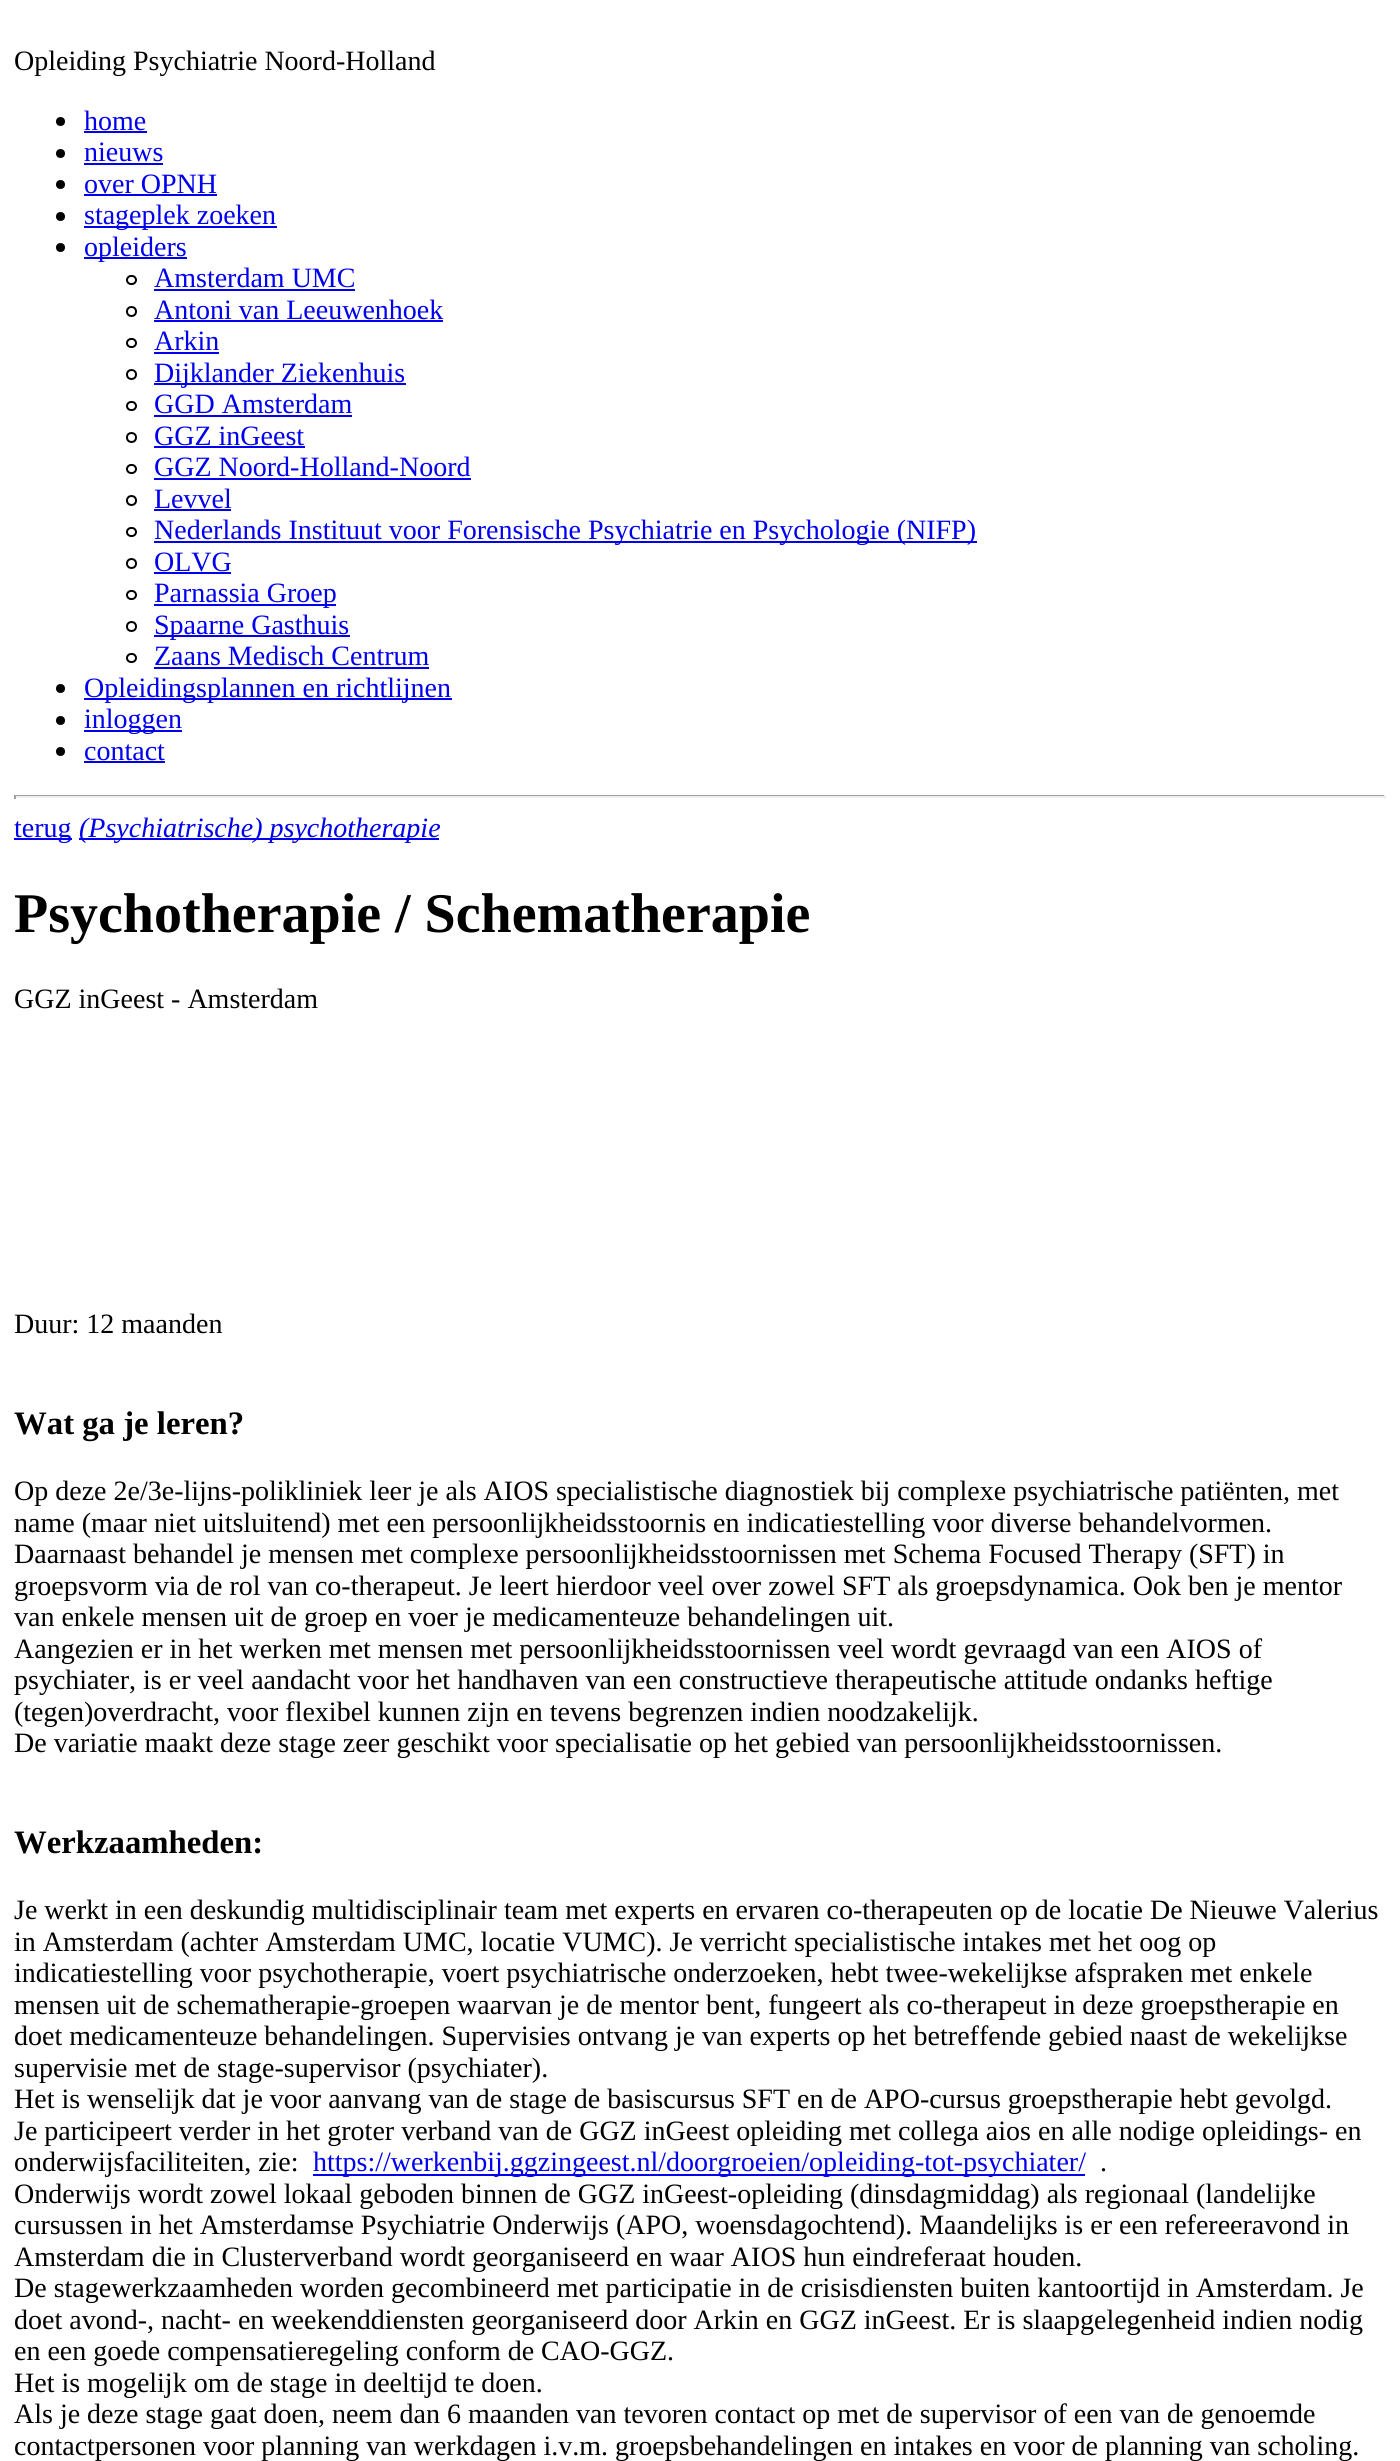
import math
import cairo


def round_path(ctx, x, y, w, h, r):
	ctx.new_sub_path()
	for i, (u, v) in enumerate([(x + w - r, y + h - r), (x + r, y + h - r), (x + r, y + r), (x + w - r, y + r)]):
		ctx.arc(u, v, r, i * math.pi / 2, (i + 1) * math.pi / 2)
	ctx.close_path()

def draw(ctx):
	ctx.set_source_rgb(1, 1, 1)
	ctx.paint()
	ctx.select_font_face('Liberation Serif')
	ctx.set_font_size(28)
	ctx.set_source_rgb(0, 0, 0)
	ctx.move_to(14, 70)
	ctx.show_text('Opleiding Psychiatrie Noord-Holland')
	ctx.new_path()
	ctx.arc(60.5, 121.5, 4.5, 0, 2 * math.pi)
	ctx.fill()
	ctx.set_source_rgb(0, 0, 0.933)
	ctx.move_to(84, 130)
	ctx.show_text('home')
	ctx.rectangle(84, 131, 63, 2)
	ctx.fill()
	ctx.set_source_rgb(0, 0, 0)
	ctx.arc(60.5, 153.5, 4.5, 0, 2 * math.pi)
	ctx.fill()
	ctx.set_source_rgb(0, 0, 0.933)
	ctx.move_to(84, 161)
	ctx.show_text('nieuws')
	ctx.rectangle(84, 163, 79, 2)
	ctx.fill()
	ctx.set_source_rgb(0, 0, 0)
	ctx.arc(60.5, 184.5, 4.5, 0, 2 * math.pi)
	ctx.fill()
	ctx.set_source_rgb(0, 0, 0.933)
	ctx.move_to(84, 193)
	ctx.show_text('over OPNH')
	ctx.rectangle(84, 194, 133, 2)
	ctx.fill()
	ctx.set_source_rgb(0, 0, 0)
	ctx.arc(60.5, 216.5, 4.5, 0, 2 * math.pi)
	ctx.fill()
	ctx.set_source_rgb(0, 0, 0.933)
	ctx.rectangle(84, 226, 193, 2)
	ctx.fill()
	ctx.move_to(84, 224)
	ctx.show_text('stageplek zoeken')
	ctx.set_source_rgb(0, 0, 0)
	ctx.new_path()
	ctx.arc(60.5, 247.5, 4.5, 0, 2 * math.pi)
	ctx.fill()
	ctx.set_source_rgb(0, 0, 0.933)
	ctx.rectangle(84, 257, 103, 2)
	ctx.fill()
	ctx.move_to(84, 256)
	ctx.show_text('opleiders')
	round_path(ctx, 127, 276, 9, 8, 4)
	ctx.set_source_rgb(0, 0, 0)
	ctx.stroke()
	ctx.set_source_rgb(0, 0, 0.933)
	ctx.move_to(154, 287)
	ctx.show_text('Amsterdam UMC')
	ctx.rectangle(154, 289, 201, 2)
	ctx.fill()
	ctx.arc(131.5, 311.5, 4.5, 0, 2 * math.pi)
	ctx.set_source_rgb(0, 0, 0)
	ctx.stroke()
	ctx.set_source_rgb(0, 0, 0.933)
	ctx.move_to(154, 319)
	ctx.show_text('Antoni van Leeuwenhoek')
	ctx.rectangle(154, 320, 289, 2)
	ctx.fill()
	round_path(ctx, 127, 339, 9, 8, 4)
	ctx.set_source_rgb(0, 0, 0)
	ctx.stroke()
	ctx.set_source_rgb(0, 0, 0.933)
	ctx.move_to(154, 350)
	ctx.show_text('Arkin')
	ctx.rectangle(154, 352, 65, 2)
	ctx.fill()
	ctx.arc(131.5, 374.5, 4.5, 0, 2 * math.pi)
	ctx.set_source_rgb(0, 0, 0)
	ctx.stroke()
	ctx.set_source_rgb(0, 0, 0.933)
	ctx.rectangle(154, 383, 252, 2)
	ctx.fill()
	ctx.move_to(154, 382)
	ctx.show_text('Dijklander Ziekenhuis')
	round_path(ctx, 127, 402, 9, 8, 4)
	ctx.set_source_rgb(0, 0, 0)
	ctx.stroke()
	ctx.set_source_rgb(0, 0, 0.933)
	ctx.move_to(154, 413)
	ctx.show_text('GGD Amsterdam')
	ctx.rectangle(154, 415, 198, 2)
	ctx.fill()
	ctx.arc(131.5, 437.5, 4.5, 0, 2 * math.pi)
	ctx.set_source_rgb(0, 0, 0)
	ctx.stroke()
	ctx.set_source_rgb(0, 0, 0.933)
	ctx.move_to(154, 445)
	ctx.show_text('GGZ inGeest')
	ctx.rectangle(154, 446, 151, 2)
	ctx.fill()
	round_path(ctx, 127, 465, 9, 8, 4)
	ctx.set_source_rgb(0, 0, 0)
	ctx.stroke()
	ctx.set_source_rgb(0, 0, 0.933)
	ctx.move_to(154, 476)
	ctx.show_text('GGZ Noord-Holland-Noord')
	ctx.rectangle(154, 478, 317, 2)
	ctx.fill()
	ctx.arc(131.5, 500.5, 4.5, 0, 2 * math.pi)
	ctx.set_source_rgb(0, 0, 0)
	ctx.stroke()
	ctx.set_source_rgb(0, 0, 0.933)
	ctx.move_to(154, 508)
	ctx.show_text('Levvel')
	ctx.rectangle(154, 509, 77, 2)
	ctx.fill()
	round_path(ctx, 127, 528, 9, 8, 4)
	ctx.set_source_rgb(0, 0, 0)
	ctx.stroke()
	ctx.set_source_rgb(0, 0, 0.933)
	ctx.rectangle(154, 541, 823, 2)
	ctx.fill()
	ctx.move_to(154, 539)
	ctx.show_text('Nederlands Instituut voor Forensische Psychiatrie en Psychologie (NIFP)')
	ctx.new_path()
	ctx.arc(131.5, 563.5, 4.5, 0, 2 * math.pi)
	ctx.set_source_rgb(0, 0, 0)
	ctx.stroke()
	ctx.set_source_rgb(0, 0, 0.933)
	ctx.move_to(154, 571)
	ctx.show_text('OLVG')
	ctx.rectangle(154, 572, 77, 2)
	ctx.fill()
	round_path(ctx, 127, 591, 9, 8, 4)
	ctx.set_source_rgb(0, 0, 0)
	ctx.stroke()
	ctx.set_source_rgb(0, 0, 0.933)
	ctx.rectangle(154, 604, 182, 2)
	ctx.fill()
	ctx.move_to(154, 602)
	ctx.show_text('Parnassia Groep')
	ctx.new_path()
	ctx.arc(131.5, 626.5, 4.5, 0, 2 * math.pi)
	ctx.set_source_rgb(0, 0, 0)
	ctx.stroke()
	ctx.set_source_rgb(0, 0, 0.933)
	ctx.rectangle(154, 635, 196, 2)
	ctx.fill()
	ctx.move_to(154, 634)
	ctx.show_text('Spaarne Gasthuis')
	round_path(ctx, 127, 654, 9, 8, 4)
	ctx.set_source_rgb(0, 0, 0)
	ctx.stroke()
	ctx.set_source_rgb(0, 0, 0.933)
	ctx.move_to(154, 665)
	ctx.show_text('Zaans Medisch Centrum')
	ctx.rectangle(154, 667, 275, 2)
	ctx.fill()
	ctx.set_source_rgb(0, 0, 0)
	ctx.arc(60.5, 688.5, 4.5, 0, 2 * math.pi)
	ctx.fill()
	ctx.set_source_rgb(0, 0, 0.933)
	ctx.rectangle(84, 698, 368, 2)
	ctx.fill()
	ctx.move_to(84, 697)
	ctx.show_text('Opleidingsplannen en richtlijnen')
	ctx.set_source_rgb(0, 0, 0)
	ctx.new_path()
	ctx.arc(60.5, 720.5, 4.5, 0, 2 * math.pi)
	ctx.fill()
	ctx.set_source_rgb(0, 0, 0.933)
	ctx.rectangle(84, 730, 98, 2)
	ctx.fill()
	ctx.move_to(84, 728)
	ctx.show_text('inloggen')
	ctx.set_source_rgb(0, 0, 0)
	ctx.new_path()
	ctx.arc(60.5, 751.5, 4.5, 0, 2 * math.pi)
	ctx.fill()
	ctx.set_source_rgb(0, 0, 0.933)
	ctx.move_to(84, 760)
	ctx.show_text('contact')
	ctx.rectangle(84, 761, 81, 2)
	ctx.fill()
	ctx.set_source_rgb(0.624, 0.624, 0.624)
	ctx.rectangle(14, 795, 1372, 1)
	ctx.fill()
	ctx.set_source_rgb(0.933, 0.933, 0.933)
	ctx.rectangle(1384, 795, 2, 4)
	ctx.rectangle(14, 796, 1372, 2)
	ctx.fill()
	ctx.set_source_rgb(0.624, 0.624, 0.624)
	ctx.rectangle(14, 795, 2, 4)
	ctx.fill()
	ctx.set_source_rgb(0, 0, 0.933)
	ctx.rectangle(14, 838, 58, 2)
	ctx.fill()
	ctx.move_to(14, 837)
	ctx.show_text('terug')
	ctx.rectangle(79, 838, 360, 2)
	ctx.fill()
	ctx.select_font_face('Liberation Serif', cairo.FONT_SLANT_ITALIC)
	ctx.move_to(79, 837)
	ctx.show_text('(Psychiatrische) psychotherapie')
	ctx.select_font_face('Liberation Serif', cairo.FONT_SLANT_NORMAL, cairo.FONT_WEIGHT_BOLD)
	ctx.set_font_size(56)
	ctx.set_source_rgb(0, 0, 0)
	ctx.move_to(14, 932)
	ctx.show_text('Psychotherapie / Schematherapie')
	ctx.select_font_face('Liberation Serif')
	ctx.set_font_size(28)
	ctx.move_to(14, 1008)
	ctx.show_text('GGZ inGeest - Amsterdam')
	ctx.move_to(14, 1333)
	ctx.show_text('Duur: 12 maanden')
	ctx.select_font_face('Liberation Serif', cairo.FONT_SLANT_NORMAL, cairo.FONT_WEIGHT_BOLD)
	ctx.set_font_size(32.75)
	ctx.move_to(14, 1434)
	ctx.show_text('Wat ga je leren?')
	ctx.select_font_face('Liberation Serif')
	ctx.set_font_size(28)
	for x, y, s in [
		(14, 1500, 'Op deze 2e/3e-lijns-polikliniek leer je als AIOS specialistische diagnostiek bij complexe psychiatrische patiënten, met'),
		(14, 1532, 'name (maar niet uitsluitend) met een persoonlijkheidsstoornis en indicatiestelling voor diverse behandelvormen.'),
		(14, 1563, 'Daarnaast behandel je mensen met complexe persoonlijkheidsstoornissen met Schema Focused Therapy (SFT) in'),
		(14, 1595, 'groepsvorm via de rol van co-therapeut. Je leert hierdoor veel over zowel SFT als groepsdynamica. Ook ben je mentor'),
		(14, 1626, 'van enkele mensen uit de groep en voer je medicamenteuze behandelingen uit.'),
		(14, 1658, 'Aangezien er in het werken met mensen met persoonlijkheidsstoornissen veel wordt gevraagd van een AIOS of'),
		(14, 1689, 'psychiater, is er veel aandacht voor het handhaven van een constructieve therapeutische attitude ondanks heftige'),
		(14, 1721, '(tegen)overdracht, voor flexibel kunnen zijn en tevens begrenzen indien noodzakelijk.'),
		(14, 1752, 'De variatie maakt deze stage zeer geschikt voor specialisatie op het gebied van persoonlijkheidsstoornissen.'),
	]:
		ctx.move_to(x, y)
		ctx.show_text(s)
	ctx.select_font_face('Liberation Serif', cairo.FONT_SLANT_NORMAL, cairo.FONT_WEIGHT_BOLD)
	ctx.set_font_size(32.75)
	ctx.move_to(14, 1853)
	ctx.show_text('Werkzaamheden:')
	ctx.select_font_face('Liberation Serif')
	ctx.set_font_size(28)
	for x, y, s in [
		(14, 1919, 'Je werkt in een deskundig multidisciplinair team met experts en ervaren co-therapeuten op de locatie De Nieuwe Valerius'),
		(14, 1951, 'in Amsterdam (achter Amsterdam UMC, locatie VUMC). Je verricht specialistische intakes met het oog op'),
		(14, 1982, 'indicatiestelling voor psychotherapie, voert psychiatrische onderzoeken, hebt twee-wekelijkse afspraken met enkele'),
		(14, 2014, 'mensen uit de schematherapie-groepen waarvan je de mentor bent, fungeert als co-therapeut in deze groepstherapie en'),
		(14, 2045, 'doet medicamenteuze behandelingen. Supervisies ontvang je van experts op het betreffende gebied naast de wekelijkse'),
		(14, 2077, 'supervisie met de stage-supervisor (psychiater).'),
		(14, 2108, 'Het is wenselijk dat je voor aanvang van de stage de basiscursus SFT en de APO-cursus groepstherapie hebt gevolgd.'),
		(14, 2140, 'Je participeert verder in het groter verband van de GGZ inGeest opleiding met collega aios en alle nodige opleidings- en'),
		(14, 2171, 'onderwijsfaciliteiten, zie:'),
	]:
		ctx.move_to(x, y)
		ctx.show_text(s)
	ctx.set_source_rgb(0, 0, 0.933)
	ctx.rectangle(313, 2174, 772, 2)
	ctx.fill()
	ctx.move_to(313, 2171)
	ctx.show_text('https://werkenbij.ggzingeest.nl/doorgroeien/opleiding-tot-psychiater/')
	ctx.set_source_rgb(0, 0, 0)
	for x, y, s in [
		(1100, 2171, '.'),
		(14, 2203, 'Onderwijs wordt zowel lokaal geboden binnen de GGZ inGeest-opleiding (dinsdagmiddag) als regionaal (landelijke'),
		(14, 2234, 'cursussen in het Amsterdamse Psychiatrie Onderwijs (APO, woensdagochtend). Maandelijks is er een refereeravond in'),
		(14, 2266, 'Amsterdam die in Clusterverband wordt georganiseerd en waar AIOS hun eindreferaat houden.'),
		(14, 2297, 'De stagewerkzaamheden worden gecombineerd met participatie in de crisisdiensten buiten kantoortijd in Amsterdam. Je'),
		(14, 2329, 'doet avond-, nacht- en weekenddiensten georganiseerd door Arkin en GGZ inGeest. Er is slaapgelegenheid indien nodig'),
		(14, 2360, 'en een goede compensatieregeling conform de CAO-GGZ.'),
		(14, 2392, 'Het is mogelijk om de stage in deeltijd te doen.'),
		(14, 2423, 'Als je deze stage gaat doen, neem dan 6 maanden van tevoren contact op met de supervisor of een van de genoemde'),
		(14, 2455, 'contactpersonen voor planning van werkdagen i.v.m. groepsbehandelingen en intakes en voor de planning van scholing.'),
	]:
		ctx.move_to(x, y)
		ctx.show_text(s)


surface = cairo.ImageSurface(cairo.FORMAT_RGB24, 1400, 2461)
ctx = cairo.Context(surface)
options = cairo.FontOptions()
options.set_hint_metrics(cairo.HINT_METRICS_OFF)
options.set_hint_style(cairo.HINT_STYLE_NONE)
ctx.set_font_options(options)
ctx.set_miter_limit(4)
draw(ctx)
surface.write_to_png('image.png')
